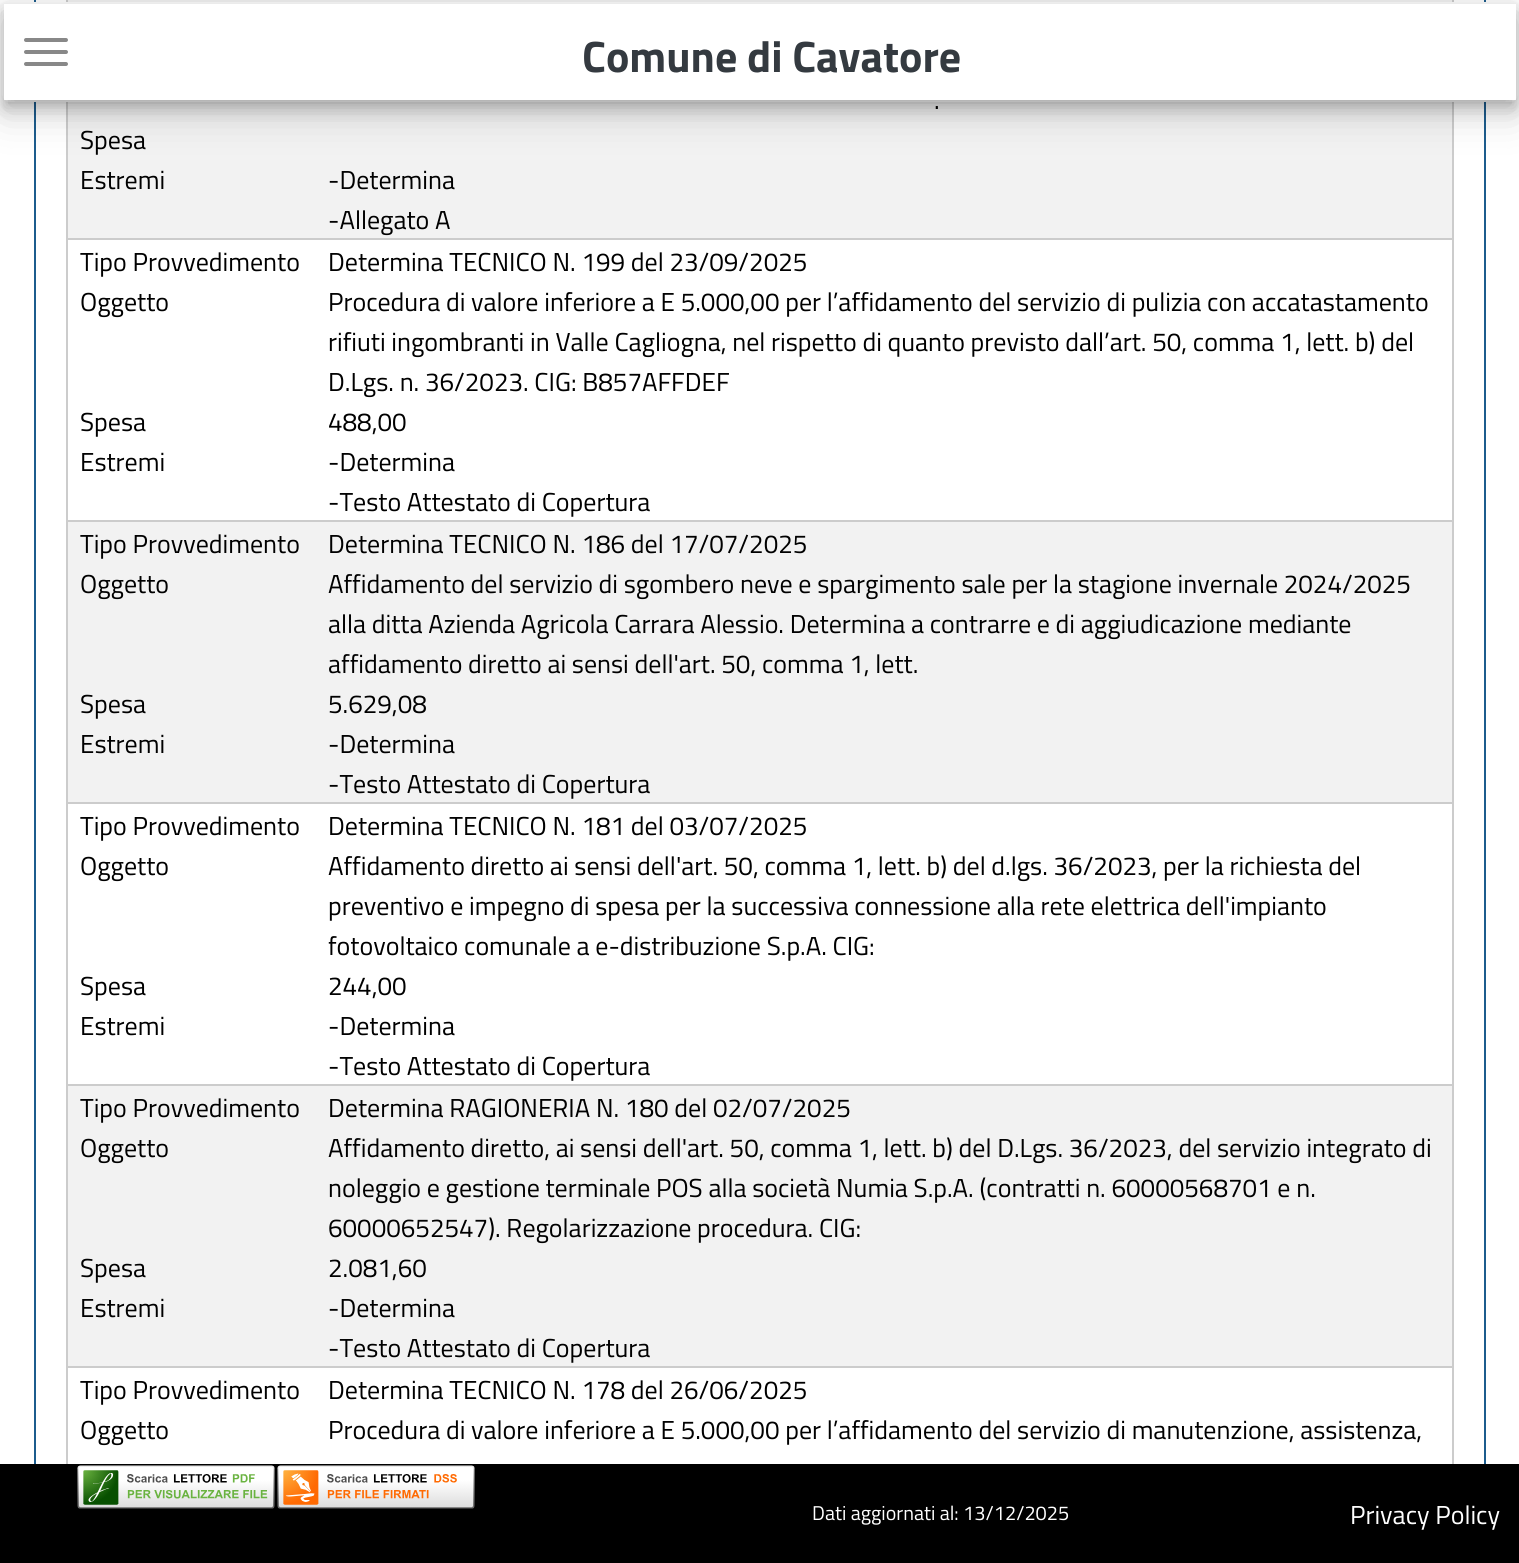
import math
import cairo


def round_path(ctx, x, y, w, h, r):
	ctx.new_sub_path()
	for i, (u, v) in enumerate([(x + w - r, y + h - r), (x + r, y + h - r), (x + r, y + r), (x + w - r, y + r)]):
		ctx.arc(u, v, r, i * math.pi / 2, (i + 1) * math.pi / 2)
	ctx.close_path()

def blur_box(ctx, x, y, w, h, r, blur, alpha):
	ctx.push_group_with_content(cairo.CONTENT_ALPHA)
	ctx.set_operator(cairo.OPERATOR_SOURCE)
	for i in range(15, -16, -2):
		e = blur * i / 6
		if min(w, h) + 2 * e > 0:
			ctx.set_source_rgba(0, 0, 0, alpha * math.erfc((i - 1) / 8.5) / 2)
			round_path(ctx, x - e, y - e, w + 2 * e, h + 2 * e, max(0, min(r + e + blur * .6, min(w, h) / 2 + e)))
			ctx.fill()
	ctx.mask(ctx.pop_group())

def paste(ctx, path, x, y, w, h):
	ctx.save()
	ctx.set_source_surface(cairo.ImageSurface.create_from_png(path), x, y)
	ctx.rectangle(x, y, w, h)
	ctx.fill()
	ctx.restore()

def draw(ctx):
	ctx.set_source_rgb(1, 1, 1)
	ctx.paint()
	ctx.rectangle(35, -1, 1450, 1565)
	ctx.set_source_rgb(0.11, 0.361, 0.553)
	ctx.stroke()
	ctx.set_source_rgb(0.949, 0.949, 0.949)
	ctx.rectangle(68, 0, 1384, 238)
	ctx.fill()
	ctx.set_source_rgb(0.8, 0.8, 0.8)
	ctx.rectangle(66, 238, 1388, 2)
	ctx.rectangle(66, 520, 1388, 2)
	ctx.rectangle(66, 802, 1388, 2)
	ctx.rectangle(66, 1084, 1388, 2)
	ctx.rectangle(66, 1366, 1388, 2)
	ctx.rectangle(1452, 1366, 2, 98)
	ctx.rectangle(1452, 1084, 2, 284)
	ctx.rectangle(1452, 802, 2, 284)
	ctx.rectangle(1452, 520, 2, 284)
	ctx.rectangle(1452, 0, 2, 522)
	ctx.rectangle(66, 1366, 2, 98)
	ctx.rectangle(66, 1084, 2, 284)
	ctx.rectangle(66, 802, 2, 284)
	ctx.rectangle(66, 520, 2, 284)
	ctx.rectangle(66, 0, 2, 522)
	ctx.fill()
	ctx.set_source_rgb(0, 0, 0)
	blur_box(ctx, 2, 4, 1516, 100, 8, 1, 0.05)
	ctx.set_source_rgb(1, 1, 1)
	round_path(ctx, 2, 2, 1516, 100, 8)
	ctx.fill()
	ctx.save()
	ctx.set_fill_rule(cairo.FILL_RULE_EVEN_ODD)
	ctx.new_path()
	ctx.move_to(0, 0)
	ctx.line_to(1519, 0)
	ctx.line_to(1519, 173)
	ctx.line_to(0, 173)
	ctx.close_path()
	ctx.move_to(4, 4)
	ctx.line_to(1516, 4)
	ctx.line_to(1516, 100)
	ctx.line_to(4, 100)
	ctx.close_path()
	ctx.clip()
	ctx.set_source_rgb(0, 0, 0)
	blur_box(ctx, 4, 16, 1512, 96, 0, 20, 0.19)
	ctx.restore()
	ctx.save()
	ctx.set_fill_rule(cairo.FILL_RULE_EVEN_ODD)
	ctx.new_path()
	ctx.move_to(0, 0)
	ctx.line_to(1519, 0)
	ctx.line_to(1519, 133)
	ctx.line_to(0, 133)
	ctx.close_path()
	ctx.move_to(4, 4)
	ctx.line_to(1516, 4)
	ctx.line_to(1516, 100)
	ctx.line_to(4, 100)
	ctx.close_path()
	ctx.clip()
	ctx.set_source_rgb(0, 0, 0)
	blur_box(ctx, 4, 12, 1512, 96, 0, 8, 0.2)
	ctx.restore()
	ctx.set_source_rgb(0.533, 0.533, 0.533)
	round_path(ctx, 24, 38, 44, 4, 2)
	ctx.fill()
	round_path(ctx, 24, 50, 44, 4, 2)
	ctx.fill()
	round_path(ctx, 24, 62, 44, 4, 2)
	ctx.fill()
	ctx.select_font_face('Titillium Web', cairo.FONT_SLANT_NORMAL, cairo.FONT_WEIGHT_BOLD)
	ctx.set_font_size(44)
	ctx.set_source_rgb(0.204, 0.227, 0.251)
	ctx.move_to(582, 72)
	ctx.show_text('Comune di Cavatore')
	ctx.select_font_face('Titillium Web')
	ctx.set_font_size(26)
	ctx.set_source_rgb(0, 0, 0)
	for x, y, s in [
		(934, 109, '.'),
		(80, 149, 'Spesa'),
		(80, 189, 'Estremi'),
		(328, 189, '-Determina'),
		(328, 229, '-Allegato A'),
		(80, 271, 'Tipo Provvedimento'),
		(328, 271, 'Determina TECNICO N. 199 del 23/09/2025'),
		(80, 311, 'Oggetto'),
		(328, 311, 'Procedura di valore inferiore a E 5.000,00 per l’affidamento del servizio di pulizia con accatastamento'),
		(328, 351, 'rifiuti ingombranti in Valle Cagliogna, nel rispetto di quanto previsto dall’art. 50, comma 1, lett. b) del'),
		(328, 391, 'D.Lgs. n. 36/2023. CIG: B857AFFDEF'),
		(80, 431, 'Spesa'),
		(328, 431, '488,00'),
		(80, 471, 'Estremi'),
		(328, 471, '-Determina'),
		(328, 511, '-Testo Attestato di Copertura'),
	]:
		ctx.move_to(x, y)
		ctx.show_text(s)
	ctx.set_source_rgb(0.949, 0.949, 0.949)
	ctx.rectangle(68, 522, 1384, 280)
	ctx.fill()
	ctx.set_source_rgb(0, 0, 0)
	for x, y, s in [
		(80, 553, 'Tipo Provvedimento'),
		(328, 553, 'Determina TECNICO N. 186 del 17/07/2025'),
		(80, 593, 'Oggetto'),
		(328, 593, 'Affidamento del servizio di sgombero neve e spargimento sale per la stagione invernale 2024/2025'),
		(328, 633, 'alla ditta Azienda Agricola Carrara Alessio. Determina a contrarre e di aggiudicazione mediante'),
		(328, 673, 'affidamento diretto ai sensi dell\'art. 50, comma 1, lett.'),
		(80, 713, 'Spesa'),
		(328, 713, '5.629,08'),
		(80, 753, 'Estremi'),
		(328, 753, '-Determina'),
		(328, 793, '-Testo Attestato di Copertura'),
		(80, 835, 'Tipo Provvedimento'),
		(328, 835, 'Determina TECNICO N. 181 del 03/07/2025'),
		(80, 875, 'Oggetto'),
		(328, 875, 'Affidamento diretto ai sensi dell\'art. 50, comma 1, lett. b) del d.lgs. 36/2023, per la richiesta del'),
		(328, 915, 'preventivo e impegno di spesa per la successiva connessione alla rete elettrica dell\'impianto'),
		(328, 955, 'fotovoltaico comunale a e-distribuzione S.p.A. CIG:'),
		(80, 995, 'Spesa'),
		(328, 995, '244,00'),
		(80, 1035, 'Estremi'),
		(328, 1035, '-Determina'),
		(328, 1075, '-Testo Attestato di Copertura'),
	]:
		ctx.move_to(x, y)
		ctx.show_text(s)
	ctx.set_source_rgb(0.949, 0.949, 0.949)
	ctx.rectangle(68, 1086, 1384, 280)
	ctx.fill()
	ctx.set_source_rgb(0, 0, 0)
	for x, y, s in [
		(80, 1117, 'Tipo Provvedimento'),
		(328, 1117, 'Determina RAGIONERIA N. 180 del 02/07/2025'),
		(80, 1157, 'Oggetto'),
		(328, 1157, 'Affidamento diretto, ai sensi dell\'art. 50, comma 1, lett. b) del D.Lgs. 36/2023, del servizio integrato di'),
		(328, 1197, 'noleggio e gestione terminale POS alla società Numia S.p.A. (contratti n. 60000568701 e n.'),
		(328, 1237, '60000652547). Regolarizzazione procedura. CIG:'),
		(80, 1277, 'Spesa'),
		(328, 1277, '2.081,60'),
		(80, 1317, 'Estremi'),
		(328, 1317, '-Determina'),
		(328, 1357, '-Testo Attestato di Copertura'),
		(80, 1399, 'Tipo Provvedimento'),
		(328, 1399, 'Determina TECNICO N. 178 del 26/06/2025'),
		(80, 1439, 'Oggetto'),
		(328, 1439, 'Procedura di valore inferiore a E 5.000,00 per l’affidamento del servizio di manutenzione, assistenza,'),
	]:
		ctx.move_to(x, y)
		ctx.show_text(s)
	ctx.rectangle(0, 1464, 1519, 99)
	ctx.fill()
	paste(ctx, 'media/1.png', 77, 1465, 198, 44)
	paste(ctx, 'media/2.png', 277, 1465, 198, 44)
	ctx.set_font_size(20)
	ctx.set_source_rgb(1, 1, 1)
	ctx.move_to(812, 1520)
	ctx.show_text('Dati aggiornati al: 13/12/2025')
	ctx.set_font_size(26)
	ctx.move_to(1350, 1524)
	ctx.show_text('Privacy Policy')


surface = cairo.ImageSurface(cairo.FORMAT_RGB24, 1519, 1563)
ctx = cairo.Context(surface)
options = cairo.FontOptions()
options.set_hint_metrics(cairo.HINT_METRICS_OFF)
options.set_hint_style(cairo.HINT_STYLE_NONE)
ctx.set_font_options(options)
ctx.set_miter_limit(4)
draw(ctx)
surface.write_to_png('image.png')
